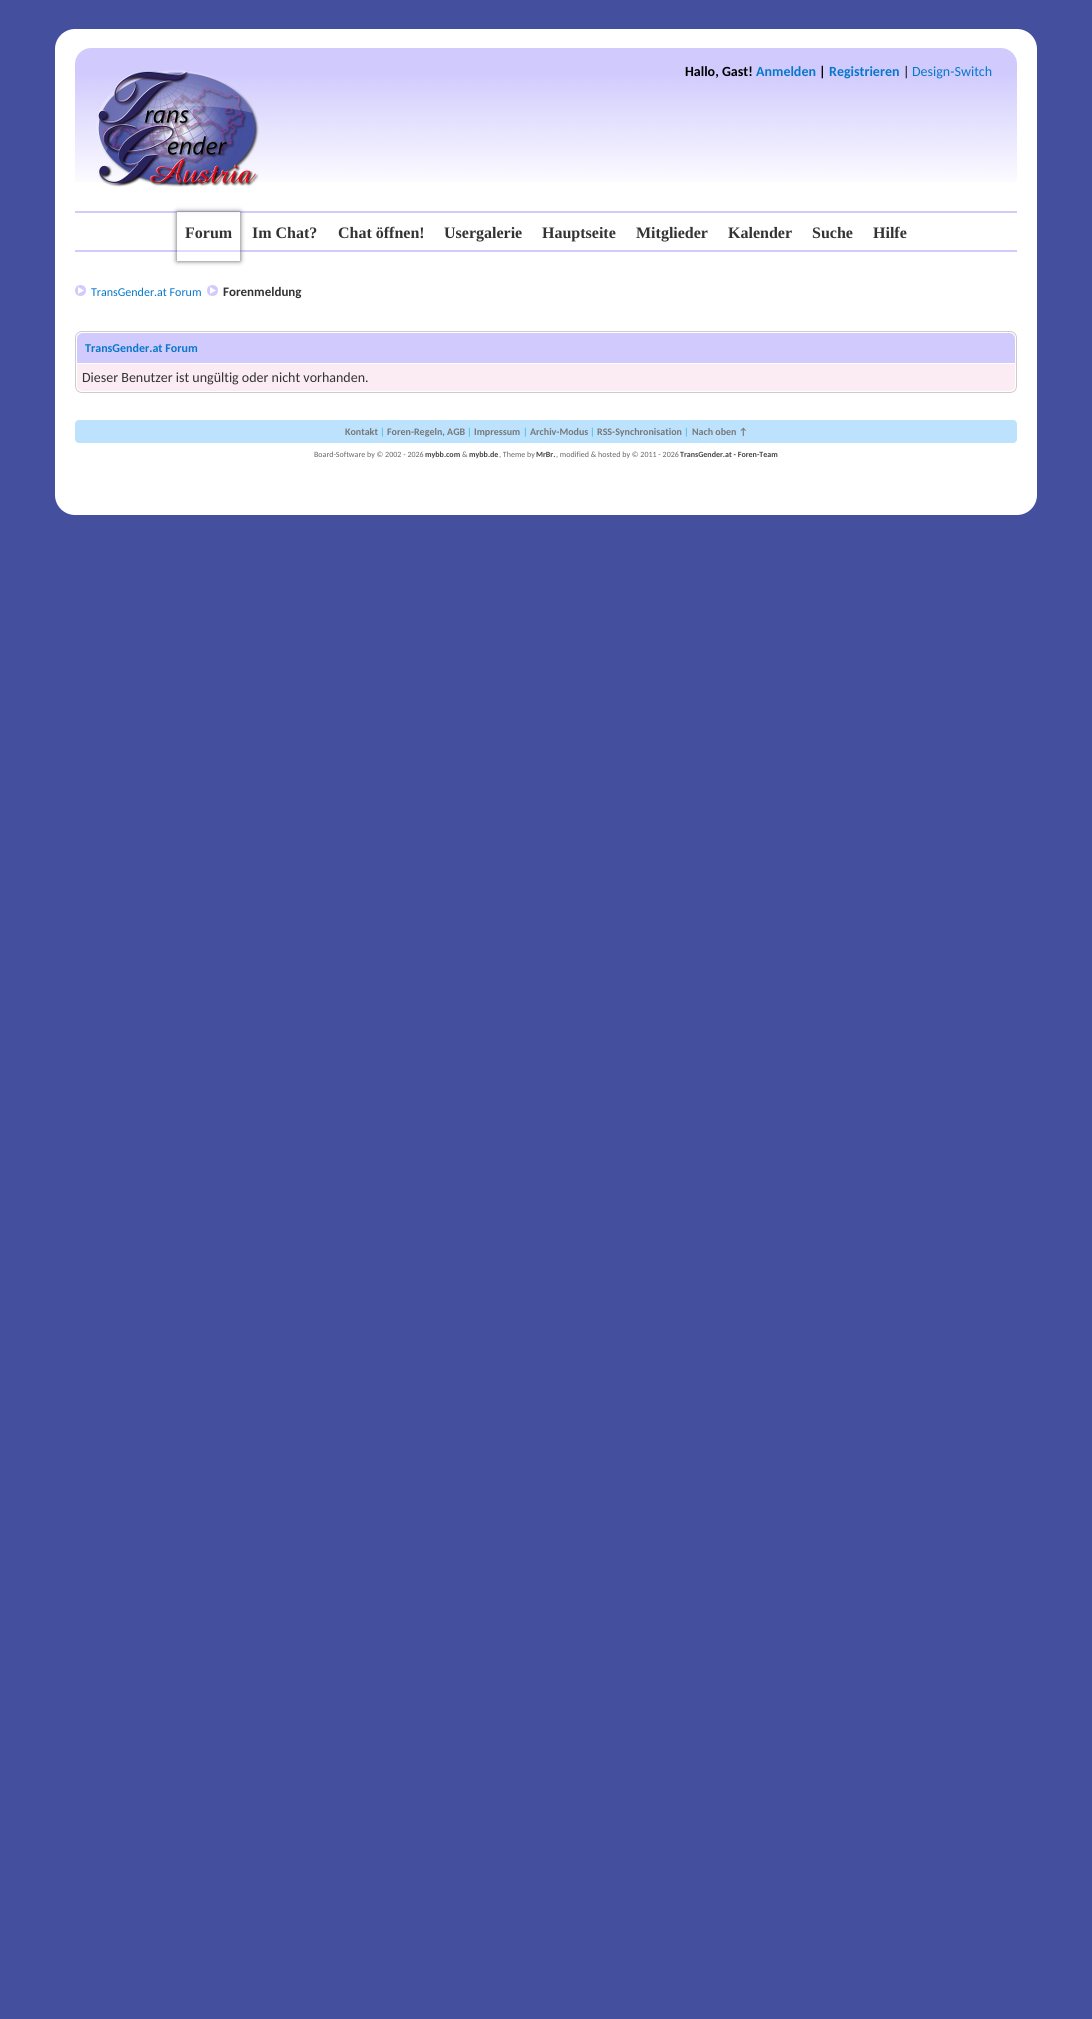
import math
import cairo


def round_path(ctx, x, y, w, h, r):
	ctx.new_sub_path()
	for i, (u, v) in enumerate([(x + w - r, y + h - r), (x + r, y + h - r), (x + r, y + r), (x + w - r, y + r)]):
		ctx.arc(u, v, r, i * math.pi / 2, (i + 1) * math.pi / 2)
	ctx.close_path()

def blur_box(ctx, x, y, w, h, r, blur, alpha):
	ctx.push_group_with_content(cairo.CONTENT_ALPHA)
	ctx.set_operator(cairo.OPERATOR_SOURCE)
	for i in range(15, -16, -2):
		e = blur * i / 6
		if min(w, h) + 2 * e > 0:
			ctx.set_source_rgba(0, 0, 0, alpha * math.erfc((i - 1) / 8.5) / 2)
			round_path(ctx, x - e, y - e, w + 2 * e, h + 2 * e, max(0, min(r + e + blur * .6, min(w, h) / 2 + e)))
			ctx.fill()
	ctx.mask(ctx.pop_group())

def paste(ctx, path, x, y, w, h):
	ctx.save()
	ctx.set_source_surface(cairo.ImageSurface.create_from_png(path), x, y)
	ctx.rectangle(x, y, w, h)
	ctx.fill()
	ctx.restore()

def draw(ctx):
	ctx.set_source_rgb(0.267, 0.31, 0.616)
	ctx.paint()
	ctx.set_source_rgb(1, 1, 1)
	ctx.new_path()
	ctx.move_to(75, 29)
	ctx.line_to(1017, 29)
	ctx.curve_to(1028, 29, 1037, 38, 1037, 49)
	ctx.line_to(55, 49)
	ctx.curve_to(55, 38, 64, 29, 75, 29)
	ctx.close_path()
	ctx.fill()
	ctx.rectangle(55, 48, 982, 422)
	ctx.fill()
	paste(ctx, 'media/1.png', 75, 48, 942, 134)
	paste(ctx, 'media/2.png', 96, 70, 163, 117)
	ctx.select_font_face('Carlito', cairo.FONT_SLANT_NORMAL, cairo.FONT_WEIGHT_BOLD)
	ctx.set_font_size(14)
	ctx.set_source_rgb(0, 0, 0)
	ctx.move_to(685, 76)
	ctx.show_text('Hallo, Gast!')
	ctx.set_source_rgb(0.031, 0.467, 0.796)
	ctx.move_to(756, 76)
	ctx.show_text('Anmelden')
	ctx.set_source_rgb(0, 0, 0)
	ctx.move_to(819, 76)
	ctx.show_text('|')
	ctx.set_source_rgb(0.031, 0.467, 0.796)
	ctx.move_to(829, 76)
	ctx.show_text('Registrieren')
	ctx.select_font_face('Carlito')
	ctx.set_source_rgb(0, 0, 0)
	ctx.move_to(903, 76)
	ctx.show_text('|')
	ctx.set_source_rgb(0.031, 0.467, 0.796)
	ctx.move_to(912, 76)
	ctx.show_text('Design-Switch')
	ctx.set_source_rgb(0.82, 0.796, 0.992)
	ctx.rectangle(75, 211, 942, 2)
	ctx.fill()
	ctx.rectangle(75, 250, 942, 2)
	ctx.fill()
	ctx.save()
	ctx.set_fill_rule(cairo.FILL_RULE_EVEN_ODD)
	ctx.new_path()
	ctx.move_to(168, 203)
	ctx.line_to(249, 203)
	ctx.line_to(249, 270)
	ctx.line_to(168, 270)
	ctx.close_path()
	ctx.move_to(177, 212)
	ctx.line_to(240, 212)
	ctx.line_to(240, 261)
	ctx.line_to(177, 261)
	ctx.close_path()
	ctx.clip()
	ctx.set_source_rgb(0.349, 0.349, 0.349)
	blur_box(ctx, 177, 212, 63, 49, 0, 2.5, 1)
	ctx.restore()
	gradient = cairo.LinearGradient(209, 212, 209, 261)
	gradient.add_color_stop_rgba(0, 1, 1, 1, 0.82)
	gradient.add_color_stop_rgba(1, 1, 1, 1, 0.16)
	ctx.set_source(gradient)
	ctx.rectangle(177, 212, 63, 40)
	ctx.fill()
	ctx.select_font_face('Liberation Serif', cairo.FONT_SLANT_NORMAL, cairo.FONT_WEIGHT_BOLD)
	ctx.set_font_size(16)
	ctx.set_source_rgb(0.2, 0.2, 0.2)
	for x, y, s in [
		(185, 238, 'Forum'),
		(252, 238, 'Im Chat?'),
		(338, 238, 'Chat öffnen!'),
		(444, 238, 'Usergalerie'),
		(542, 238, 'Hauptseite'),
		(636, 238, 'Mitglieder'),
		(728, 238, 'Kalender'),
		(812, 238, 'Suche'),
		(873, 238, 'Hilfe'),
	]:
		ctx.move_to(x, y)
		ctx.show_text(s)
	paste(ctx, 'media/3.png', 75, 285, 11, 11)
	ctx.select_font_face('Carlito')
	ctx.set_font_size(12)
	ctx.set_source_rgb(0.031, 0.467, 0.796)
	ctx.move_to(91, 296)
	ctx.show_text('TransGender.at Forum')
	paste(ctx, 'media/3.png', 207, 285, 11, 11)
	ctx.select_font_face('Carlito', cairo.FONT_SLANT_NORMAL, cairo.FONT_WEIGHT_BOLD)
	ctx.set_font_size(13)
	ctx.set_source_rgb(0.2, 0.2, 0.2)
	ctx.move_to(223, 296)
	ctx.show_text('Forenmeldung')
	round_path(ctx, 75.5, 331.5, 941, 61, 6.5)
	ctx.set_source_rgb(0.8, 0.8, 0.8)
	ctx.set_line_width(1)
	ctx.stroke()
	ctx.set_source_rgb(0.82, 0.796, 0.992)
	ctx.new_path()
	ctx.move_to(83, 333)
	ctx.line_to(1009, 333)
	ctx.curve_to(1012.5, 333, 1015, 335.5, 1015, 339)
	ctx.line_to(1015, 363)
	ctx.line_to(77, 363)
	ctx.line_to(77, 339)
	ctx.curve_to(77, 335.5, 79.5, 333, 83, 333)
	ctx.close_path()
	ctx.fill()
	ctx.set_font_size(12)
	ctx.set_source_rgb(0.031, 0.467, 0.796)
	ctx.move_to(85, 352)
	ctx.show_text('TransGender.at Forum')
	ctx.set_source_rgb(0.984, 0.918, 0.953)
	ctx.new_path()
	ctx.move_to(77, 364)
	ctx.line_to(1015, 364)
	ctx.line_to(1015, 385)
	ctx.curve_to(1015, 388.5, 1012.5, 391, 1009, 391)
	ctx.line_to(83, 391)
	ctx.curve_to(79.5, 391, 77, 388.5, 77, 385)
	ctx.close_path()
	ctx.fill()
	ctx.select_font_face('Carlito')
	ctx.set_font_size(14)
	ctx.set_source_rgb(0.2, 0.2, 0.2)
	ctx.move_to(82, 382)
	ctx.show_text('Dieser Benutzer ist ungültig oder nicht vorhanden.')
	ctx.set_source_rgb(0.741, 0.886, 0.992)
	round_path(ctx, 75, 420, 942, 23, 4)
	ctx.fill()
	ctx.select_font_face('Carlito', cairo.FONT_SLANT_NORMAL, cairo.FONT_WEIGHT_BOLD)
	ctx.set_font_size(10)
	ctx.set_source_rgb(0.467, 0.467, 0.467)
	ctx.move_to(345, 435)
	ctx.show_text('Kontakt')
	ctx.set_source_rgb(0.349, 0.761, 0.894)
	ctx.move_to(380, 435)
	ctx.show_text('|')
	ctx.set_source_rgb(0.467, 0.467, 0.467)
	ctx.move_to(387, 435)
	ctx.show_text('Foren-Regeln, AGB')
	ctx.set_source_rgb(0.349, 0.761, 0.894)
	ctx.move_to(467, 435)
	ctx.show_text('|')
	ctx.set_source_rgb(0.467, 0.467, 0.467)
	ctx.move_to(474, 435)
	ctx.show_text('Impressum')
	ctx.set_source_rgb(0.349, 0.761, 0.894)
	ctx.move_to(523, 435)
	ctx.show_text('|')
	ctx.set_source_rgb(0.467, 0.467, 0.467)
	ctx.move_to(530, 435)
	ctx.show_text('Archiv-Modus')
	ctx.set_source_rgb(0.349, 0.761, 0.894)
	ctx.move_to(590, 435)
	ctx.show_text('|')
	ctx.set_source_rgb(0.467, 0.467, 0.467)
	ctx.move_to(597, 435)
	ctx.show_text('RSS-Synchronisation')
	ctx.set_source_rgb(0.349, 0.761, 0.894)
	ctx.move_to(684, 435)
	ctx.show_text('|')
	ctx.set_source_rgb(0.467, 0.467, 0.467)
	ctx.move_to(692, 435)
	ctx.show_text('Nach oben ↑')
	ctx.select_font_face('Carlito')
	ctx.set_font_size(8)
	ctx.set_source_rgb(0.4, 0.4, 0.4)
	ctx.move_to(314, 457)
	ctx.show_text('Board-Software by © 2002 - 2026')
	ctx.select_font_face('Carlito', cairo.FONT_SLANT_NORMAL, cairo.FONT_WEIGHT_BOLD)
	ctx.set_source_rgb(0.267, 0.267, 0.267)
	ctx.move_to(425, 457)
	ctx.show_text('mybb.com')
	ctx.select_font_face('Carlito')
	ctx.set_source_rgb(0.4, 0.4, 0.4)
	ctx.move_to(462, 457)
	ctx.show_text('&')
	ctx.select_font_face('Carlito', cairo.FONT_SLANT_NORMAL, cairo.FONT_WEIGHT_BOLD)
	ctx.set_source_rgb(0.267, 0.267, 0.267)
	ctx.move_to(469, 457)
	ctx.show_text('mybb.de')
	ctx.select_font_face('Carlito')
	ctx.set_source_rgb(0.4, 0.4, 0.4)
	ctx.move_to(499, 457)
	ctx.show_text(', Theme by')
	ctx.select_font_face('Carlito', cairo.FONT_SLANT_NORMAL, cairo.FONT_WEIGHT_BOLD)
	ctx.set_source_rgb(0.267, 0.267, 0.267)
	ctx.move_to(536, 457)
	ctx.show_text('MrBr.')
	ctx.select_font_face('Carlito')
	ctx.set_source_rgb(0.4, 0.4, 0.4)
	ctx.move_to(556, 457)
	ctx.show_text(', modified & hosted by © 2011 - 2026')
	ctx.select_font_face('Carlito', cairo.FONT_SLANT_NORMAL, cairo.FONT_WEIGHT_BOLD)
	ctx.set_source_rgb(0.267, 0.267, 0.267)
	ctx.move_to(680, 457)
	ctx.show_text('TransGender.at - Foren-Team')
	ctx.set_source_rgb(1, 1, 1)
	ctx.new_path()
	ctx.move_to(55, 470)
	ctx.line_to(1037, 470)
	ctx.line_to(1037, 495)
	ctx.curve_to(1037, 506, 1028, 515, 1017, 515)
	ctx.line_to(75, 515)
	ctx.curve_to(64, 515, 55, 506, 55, 495)
	ctx.close_path()
	ctx.fill()


surface = cairo.ImageSurface(cairo.FORMAT_RGB24, 1092, 2019)
ctx = cairo.Context(surface)
options = cairo.FontOptions()
options.set_hint_metrics(cairo.HINT_METRICS_OFF)
options.set_hint_style(cairo.HINT_STYLE_NONE)
ctx.set_font_options(options)
ctx.set_miter_limit(4)
draw(ctx)
surface.write_to_png('image.png')
